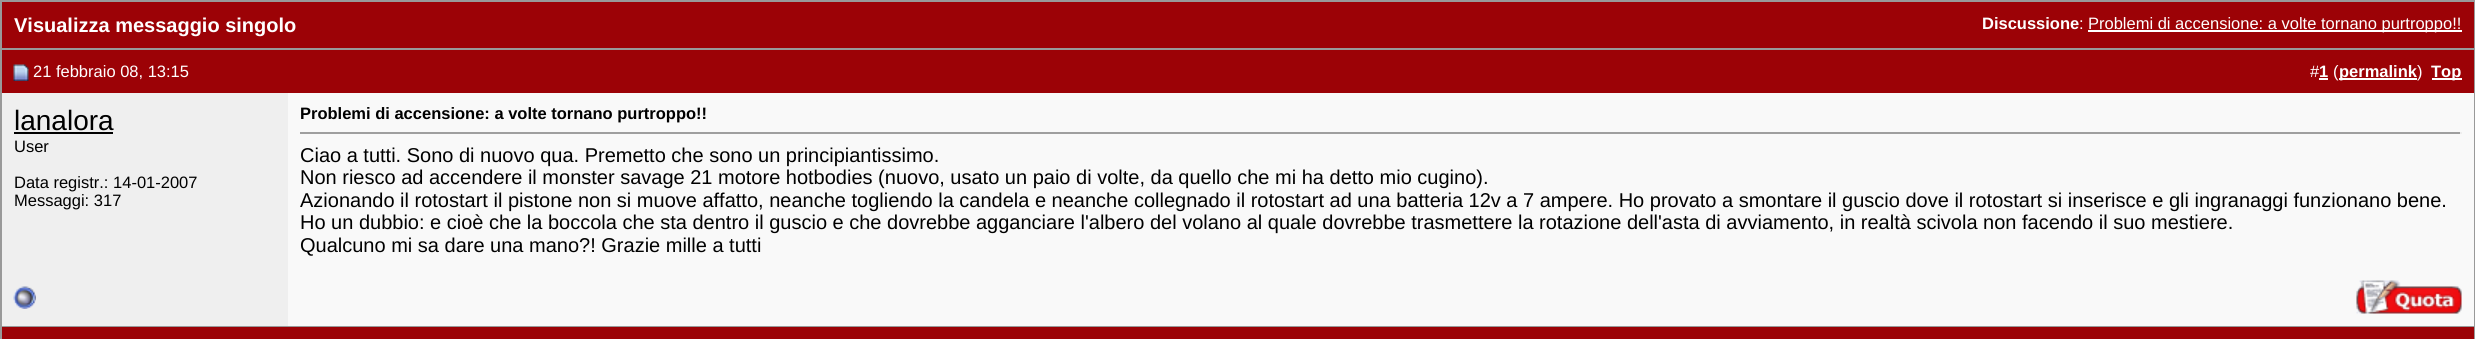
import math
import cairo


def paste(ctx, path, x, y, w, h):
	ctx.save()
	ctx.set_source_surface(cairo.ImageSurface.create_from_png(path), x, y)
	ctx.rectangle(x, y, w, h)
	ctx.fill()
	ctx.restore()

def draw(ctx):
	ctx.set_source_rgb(0.6, 0.6, 0.6)
	ctx.paint()
	ctx.set_source_rgb(0.612, 0.008, 0.027)
	ctx.rectangle(2, 2, 2472, 46)
	ctx.fill()
	ctx.select_font_face('Liberation Sans', cairo.FONT_SLANT_NORMAL, cairo.FONT_WEIGHT_BOLD)
	ctx.set_font_size(20)
	ctx.set_source_rgb(1, 1, 1)
	ctx.move_to(14, 32)
	ctx.show_text('Visualizza messaggio singolo')
	ctx.set_font_size(16.5)
	ctx.move_to(1982, 29)
	ctx.show_text('Discussione')
	ctx.select_font_face('Liberation Sans')
	ctx.move_to(2079, 29)
	ctx.show_text(':')
	ctx.rectangle(2088, 30, 374, 2)
	ctx.fill()
	ctx.move_to(2088, 29)
	ctx.show_text('Problemi di accensione: a volte tornano purtroppo!!')
	ctx.set_source_rgb(0.612, 0.008, 0.027)
	ctx.rectangle(2, 50, 2472, 43)
	ctx.fill()
	paste(ctx, 'media/1.png', 13, 64, 16, 17)
	ctx.set_source_rgb(1, 1, 1)
	ctx.move_to(33, 77)
	ctx.show_text('21 febbraio 08, 13:15')
	ctx.move_to(2310, 77)
	ctx.show_text('#')
	ctx.select_font_face('Liberation Sans', cairo.FONT_SLANT_NORMAL, cairo.FONT_WEIGHT_BOLD)
	ctx.move_to(2319, 77)
	ctx.show_text('1')
	ctx.rectangle(2319, 78, 9, 2)
	ctx.fill()
	ctx.select_font_face('Liberation Sans')
	ctx.move_to(2333, 77)
	ctx.show_text('(')
	ctx.rectangle(2339, 78, 78, 2)
	ctx.fill()
	ctx.select_font_face('Liberation Sans', cairo.FONT_SLANT_NORMAL, cairo.FONT_WEIGHT_BOLD)
	ctx.move_to(2339, 77)
	ctx.show_text('permalink')
	ctx.select_font_face('Liberation Sans')
	ctx.move_to(2417, 77)
	ctx.show_text(')')
	ctx.rectangle(2432, 78, 30, 2)
	ctx.fill()
	ctx.select_font_face('Liberation Sans', cairo.FONT_SLANT_NORMAL, cairo.FONT_WEIGHT_BOLD)
	ctx.move_to(2431, 77)
	ctx.show_text('Top')
	ctx.set_source_rgb(0.937, 0.937, 0.937)
	ctx.rectangle(2, 93, 286, 233)
	ctx.fill()
	ctx.select_font_face('Liberation Sans')
	ctx.set_font_size(28)
	ctx.set_source_rgb(0, 0, 0)
	ctx.move_to(14, 130)
	ctx.show_text('lanalora')
	ctx.rectangle(14, 132, 99, 2)
	ctx.fill()
	ctx.set_font_size(16.5)
	for x, y, s in [
		(14, 152, 'User'),
		(14, 188, 'Data registr.: 14-01-2007'),
		(14, 206, 'Messaggi: 317'),
	]:
		ctx.move_to(x, y)
		ctx.show_text(s)
	ctx.set_source_rgb(0.973, 0.973, 0.973)
	ctx.rectangle(288, 93, 2186, 233)
	ctx.fill()
	ctx.select_font_face('Liberation Sans', cairo.FONT_SLANT_NORMAL, cairo.FONT_WEIGHT_BOLD)
	ctx.set_source_rgb(0, 0, 0)
	ctx.move_to(300, 119)
	ctx.show_text('Problemi di accensione: a volte tornano purtroppo!!')
	ctx.set_source_rgb(0.624, 0.624, 0.624)
	ctx.rectangle(300, 132, 2162, 2)
	ctx.fill()
	ctx.set_source_rgb(0.933, 0.933, 0.933)
	ctx.rectangle(2460, 132, 2, 2)
	ctx.fill()
	ctx.select_font_face('Liberation Sans')
	ctx.set_font_size(20)
	ctx.set_source_rgb(0, 0, 0)
	for x, y, s in [
		(300, 162, 'Ciao a tutti. Sono di nuovo qua. Premetto che sono un principiantissimo.'),
		(300, 184, 'Non riesco ad accendere il monster savage 21 motore hotbodies (nuovo, usato un paio di volte, da quello che mi ha detto mio cugino).'),
		(300, 207, 'Azionando il rotostart il pistone non si muove affatto, neanche togliendo la candela e neanche collegnado il rotostart ad una batteria 12v a 7 ampere. Ho provato a smontare il guscio dove il rotostart si inserisce e gli ingranaggi funzionano bene.'),
		(300, 229, 'Ho un dubbio: e cioè che la boccola che sta dentro il guscio e che dovrebbe agganciare l\'albero del volano al quale dovrebbe trasmettere la rotazione dell\'asta di avviamento, in realtà scivola non facendo il suo mestiere.'),
		(300, 252, 'Qualcuno mi sa dare una mano?! Grazie mille a tutti'),
	]:
		ctx.move_to(x, y)
		ctx.show_text(s)
	paste(ctx, 'media/2.png', 13, 286, 23, 23)
	paste(ctx, 'media/3.png', 2356, 280, 106, 34)
	ctx.set_source_rgb(0.612, 0.008, 0.027)
	ctx.rectangle(2, 327, 2472, 12)
	ctx.fill()


surface = cairo.ImageSurface(cairo.FORMAT_RGB24, 2475, 339)
ctx = cairo.Context(surface)
options = cairo.FontOptions()
options.set_hint_metrics(cairo.HINT_METRICS_OFF)
options.set_hint_style(cairo.HINT_STYLE_NONE)
ctx.set_font_options(options)
ctx.set_miter_limit(4)
draw(ctx)
surface.write_to_png('image.png')
